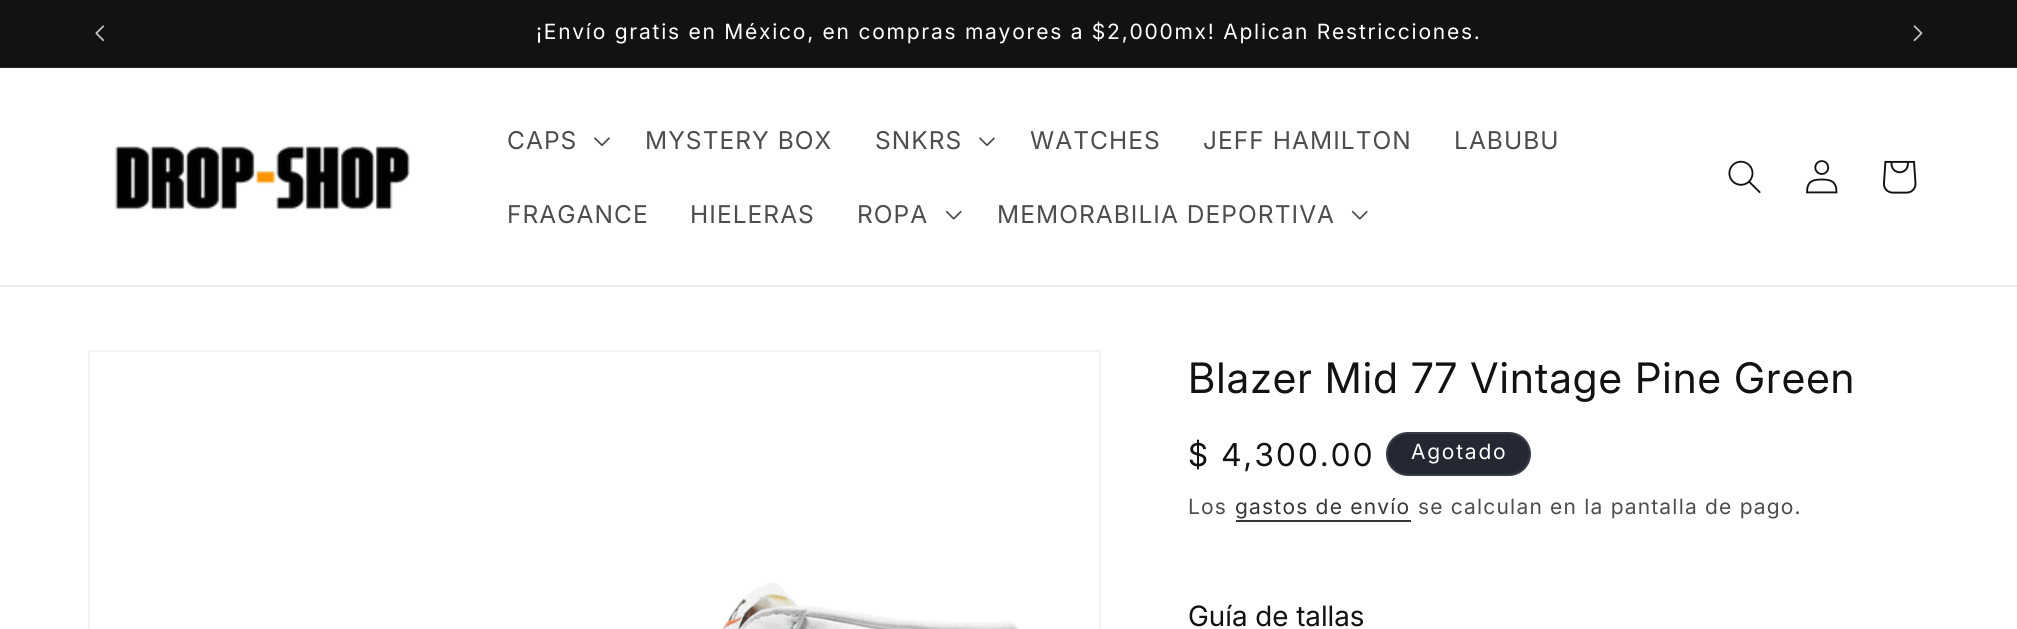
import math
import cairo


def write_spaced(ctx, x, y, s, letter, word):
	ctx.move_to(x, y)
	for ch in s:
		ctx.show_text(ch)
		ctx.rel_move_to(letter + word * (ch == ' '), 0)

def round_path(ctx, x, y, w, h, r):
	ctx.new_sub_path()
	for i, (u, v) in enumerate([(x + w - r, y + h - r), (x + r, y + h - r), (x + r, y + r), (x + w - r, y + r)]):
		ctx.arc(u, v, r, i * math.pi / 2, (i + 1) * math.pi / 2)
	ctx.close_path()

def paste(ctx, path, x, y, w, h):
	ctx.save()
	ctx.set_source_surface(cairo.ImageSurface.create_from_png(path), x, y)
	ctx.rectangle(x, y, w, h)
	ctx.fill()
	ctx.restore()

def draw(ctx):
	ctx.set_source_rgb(1, 1, 1)
	ctx.paint()
	ctx.set_source_rgb(0.071, 0.071, 0.071)
	ctx.rectangle(0, 0, 2017, 67)
	ctx.fill()
	ctx.set_source_rgb(0.145, 0.145, 0.145)
	ctx.rectangle(0, 67, 2017, 1)
	ctx.fill()
	paste(ctx, 'media/1.png', 95, 25, 10, 17)
	ctx.select_font_face('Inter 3')
	ctx.set_font_size(21)
	ctx.set_source_rgb(1, 1, 1)
	write_spaced(ctx, 536, 39, '¡Envío gratis en México, en compras mayores a $2,000mx! Aplican Restricciones.', 1.75, 0)
	paste(ctx, 'media/2.png', 1913, 25, 10, 17)
	ctx.set_source_rgb(0.925, 0.925, 0.925)
	ctx.rectangle(0, 285, 2017, 2)
	ctx.fill()
	paste(ctx, 'media/3.png', 115, 146, 295, 64)
	ctx.set_font_size(24.5)
	ctx.set_source_rgb(0.302, 0.302, 0.302)
	write_spaced(ctx, 507, 149, 'CAPS', 1.05, 0)
	paste(ctx, 'media/4.png', 594, 137, 16, 9)
	write_spaced(ctx, 645, 149, 'MYSTERY BOX', 1.05, 0)
	write_spaced(ctx, 875, 149, 'SNKRS', 1.05, 0)
	paste(ctx, 'media/4.png', 979, 137, 16, 9)
	for x, y, s in [
		(1030, 149, 'WATCHES'),
		(1203, 149, 'JEFF HAMILTON'),
		(1454, 149, 'LABUBU'),
		(507, 223, 'FRAGANCE'),
		(690, 223, 'HIELERAS'),
		(857, 223, 'ROPA'),
	]:
		write_spaced(ctx, x, y, s, 1.05, 0)
	paste(ctx, 'media/5.png', 945, 210, 17, 10)
	write_spaced(ctx, 997, 223, 'MEMORABILIA DEPORTIVA', 1.05, 0)
	paste(ctx, 'media/5.png', 1351, 210, 17, 10)
	paste(ctx, 'media/6.png', 1728, 160, 33, 34)
	paste(ctx, 'media/7.png', 1806, 160, 32, 34)
	paste(ctx, 'media/8.png', 1883, 160, 34, 34)
	ctx.rectangle(89, 351, 1011, 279)
	ctx.set_source_rgb(0.953, 0.953, 0.953)
	ctx.stroke()
	paste(ctx, 'media/9.png', 722, 582, 296, 47)
	ctx.select_font_face('Inter')
	ctx.set_font_size(42)
	ctx.set_source_rgb(0.071, 0.071, 0.071)
	write_spaced(ctx, 1188, 393, 'Blazer Mid 77 Vintage Pine Green', 1.05, 0)
	ctx.select_font_face('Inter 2')
	ctx.set_font_size(31.5)
	write_spaced(ctx, 1188, 466, '$ 4,300.00', 2.25, 0)
	ctx.set_source_rgb(0.141, 0.157, 0.2)
	round_path(ctx, 1386, 432, 145, 44, 22)
	ctx.fill()
	round_path(ctx, 1387, 433, 143, 42, 21)
	ctx.set_source_rgba(1, 1, 1, 0.1)
	ctx.stroke()
	ctx.select_font_face('Inter 3')
	ctx.set_font_size(21)
	ctx.set_source_rgb(1, 1, 1)
	write_spaced(ctx, 1411, 459, 'Agotado', 1.75, 0)
	ctx.set_source_rgb(0.302, 0.302, 0.302)
	write_spaced(ctx, 1188, 514, 'Los', 1.2, 0)
	ctx.set_source_rgb(0.212, 0.212, 0.212)
	write_spaced(ctx, 1235, 514, 'gastos de envío', 1.2, 0)
	ctx.rectangle(1236, 520, 175, 2)
	ctx.fill()
	ctx.set_source_rgb(0.302, 0.302, 0.302)
	write_spaced(ctx, 1418, 514, 'se calculan en la pantalla de pago.', 1.2, 0)
	ctx.select_font_face('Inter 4')
	ctx.set_font_size(28)
	ctx.set_source_rgb(0.071, 0.071, 0.071)
	ctx.move_to(1188, 626)
	ctx.show_text('Guía de tallas')


surface = cairo.ImageSurface(cairo.FORMAT_RGB24, 2017, 629)
ctx = cairo.Context(surface)
options = cairo.FontOptions()
options.set_hint_metrics(cairo.HINT_METRICS_OFF)
options.set_hint_style(cairo.HINT_STYLE_NONE)
ctx.set_font_options(options)
ctx.set_miter_limit(4)
draw(ctx)
surface.write_to_png('image.png')
